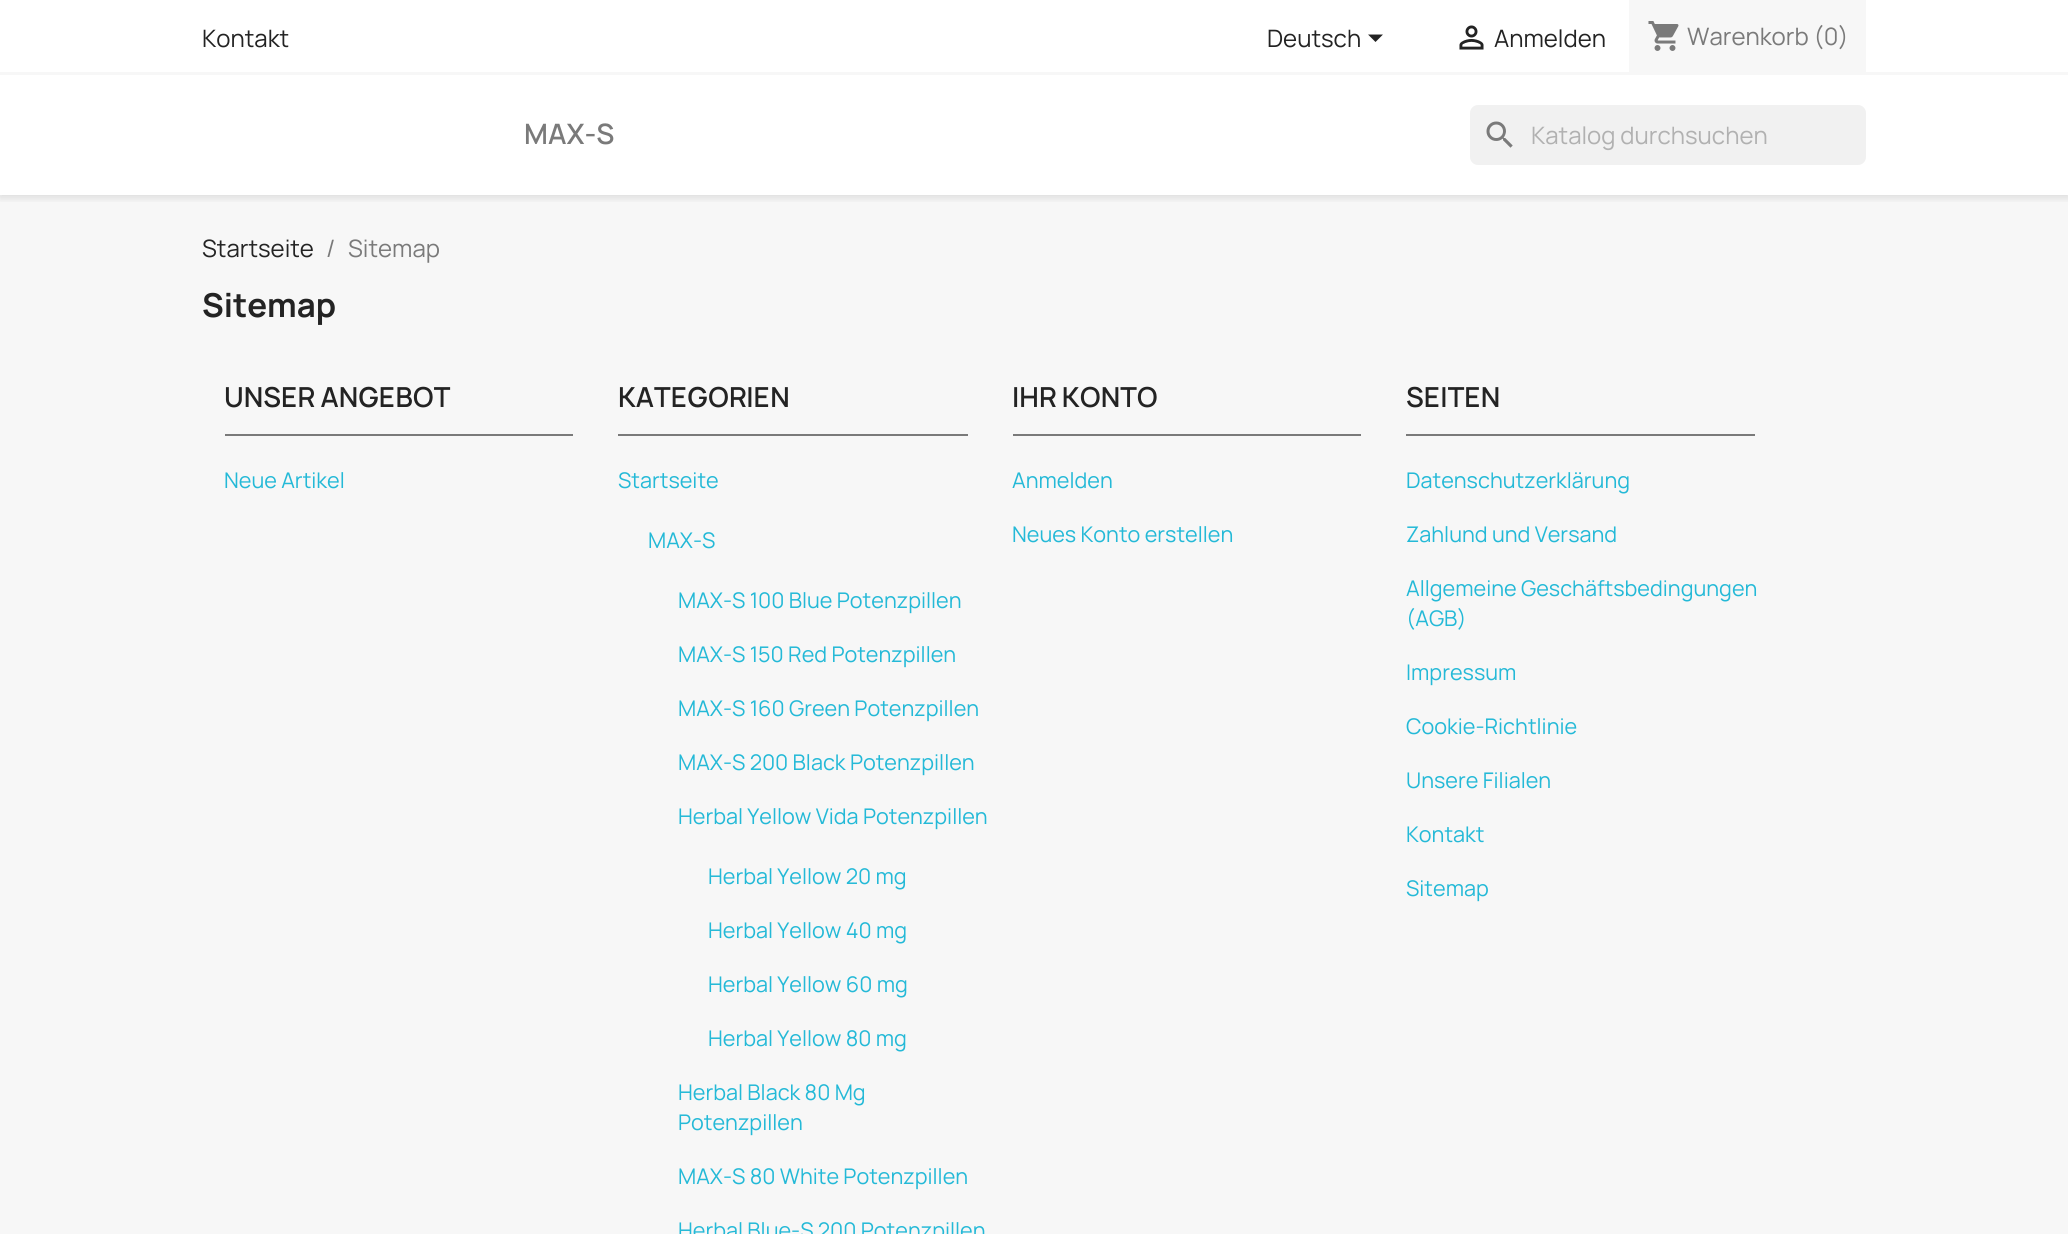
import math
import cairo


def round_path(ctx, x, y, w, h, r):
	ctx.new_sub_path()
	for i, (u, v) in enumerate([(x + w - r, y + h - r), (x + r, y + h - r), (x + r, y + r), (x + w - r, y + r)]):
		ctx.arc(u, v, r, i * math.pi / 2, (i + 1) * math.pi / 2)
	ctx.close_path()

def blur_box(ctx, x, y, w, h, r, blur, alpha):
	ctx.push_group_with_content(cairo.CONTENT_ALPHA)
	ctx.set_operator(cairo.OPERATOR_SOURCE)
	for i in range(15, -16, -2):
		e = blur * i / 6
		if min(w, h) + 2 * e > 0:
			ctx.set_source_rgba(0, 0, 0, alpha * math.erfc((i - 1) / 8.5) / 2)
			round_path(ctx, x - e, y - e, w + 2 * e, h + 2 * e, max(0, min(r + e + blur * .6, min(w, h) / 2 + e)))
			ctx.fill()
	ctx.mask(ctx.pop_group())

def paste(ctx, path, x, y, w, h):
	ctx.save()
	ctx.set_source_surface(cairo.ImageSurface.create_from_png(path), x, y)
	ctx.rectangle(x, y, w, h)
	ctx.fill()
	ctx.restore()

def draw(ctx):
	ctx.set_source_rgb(1, 1, 1)
	ctx.paint()
	ctx.set_source_rgb(0.965, 0.965, 0.965)
	ctx.rectangle(0, 195, 2068, 1039)
	ctx.fill()
	ctx.save()
	ctx.rectangle(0, 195, 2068, 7)
	ctx.clip()
	ctx.set_source_rgb(0, 0, 0)
	blur_box(ctx, 0, 3, 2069, 195, 0, 4, 0.11)
	ctx.restore()
	ctx.rectangle(0, 72, 2068, 3)
	ctx.fill()
	ctx.select_font_face('Manrope')
	ctx.set_font_size(24)
	ctx.set_source_rgb(0.137, 0.137, 0.137)
	ctx.move_to(202, 47)
	ctx.show_text('Kontakt')
	ctx.move_to(1267, 47)
	ctx.show_text('Deutsch')
	ctx.new_path()
	ctx.move_to(1368, 34.5)
	ctx.line_to(1383, 34.5)
	ctx.line_to(1375.5, 42)
	ctx.close_path()
	ctx.fill()
	paste(ctx, 'media/1.png', 1459, 25, 25, 25)
	ctx.move_to(1494, 47)
	ctx.show_text('Anmelden')
	ctx.set_source_rgb(0.965, 0.965, 0.965)
	ctx.rectangle(1629, 0, 237, 72)
	ctx.fill()
	paste(ctx, 'media/2.png', 1648, 21, 31, 30)
	ctx.set_source_rgb(0.478, 0.478, 0.478)
	ctx.move_to(1687, 45)
	ctx.show_text('Warenkorb (0)')
	ctx.select_font_face('Manrope SemiBold')
	ctx.set_font_size(27)
	ctx.move_to(524, 144)
	ctx.show_text('MAX-S')
	ctx.set_source_rgb(0.945, 0.945, 0.945)
	round_path(ctx, 1470, 105, 396, 60, 8)
	ctx.fill()
	paste(ctx, 'media/3.png', 1486, 121, 27, 27)
	ctx.select_font_face('Manrope')
	ctx.set_font_size(24)
	ctx.set_source_rgb(0.694, 0.694, 0.694)
	ctx.move_to(1531, 144)
	ctx.show_text('Katalog durchsuchen')
	ctx.set_source_rgb(0.137, 0.137, 0.137)
	ctx.move_to(202, 257)
	ctx.show_text('Startseite')
	ctx.set_source_rgb(0.478, 0.478, 0.478)
	ctx.move_to(326, 257)
	ctx.show_text('/')
	ctx.move_to(348, 257)
	ctx.show_text('Sitemap')
	ctx.select_font_face('Manrope', cairo.FONT_SLANT_NORMAL, cairo.FONT_WEIGHT_BOLD)
	ctx.set_font_size(33)
	ctx.set_source_rgb(0.137, 0.137, 0.137)
	ctx.move_to(202, 317)
	ctx.show_text('Sitemap')
	ctx.set_source_rgb(0.478, 0.478, 0.478)
	ctx.rectangle(225, 434, 348, 2)
	ctx.fill()
	ctx.select_font_face('Manrope SemiBold')
	ctx.set_font_size(26.5)
	ctx.set_source_rgb(0.137, 0.137, 0.137)
	ctx.move_to(224, 407)
	ctx.show_text('UNSER ANGEBOT')
	ctx.select_font_face('Manrope')
	ctx.set_font_size(21.6)
	ctx.set_source_rgb(0.141, 0.725, 0.843)
	ctx.move_to(224, 488)
	ctx.show_text('Neue Artikel')
	ctx.set_source_rgb(0.478, 0.478, 0.478)
	ctx.rectangle(618, 434, 350, 2)
	ctx.fill()
	ctx.select_font_face('Manrope SemiBold')
	ctx.set_font_size(26.5)
	ctx.set_source_rgb(0.137, 0.137, 0.137)
	ctx.move_to(618, 407)
	ctx.show_text('KATEGORIEN')
	ctx.select_font_face('Manrope')
	ctx.set_font_size(21.6)
	ctx.set_source_rgb(0.141, 0.725, 0.843)
	for x, y, s in [
		(618, 488, 'Startseite'),
		(648, 548, 'MAX-S'),
		(678, 608, 'MAX-S 100 Blue Potenzpillen'),
		(678, 662, 'MAX-S 150 Red Potenzpillen'),
		(678, 716, 'MAX-S 160 Green Potenzpillen'),
		(678, 770, 'MAX-S 200 Black Potenzpillen'),
		(678, 824, 'Herbal Yellow Vida Potenzpillen'),
		(708, 884, 'Herbal Yellow 20 mg'),
		(708, 938, 'Herbal Yellow 40 mg'),
		(708, 992, 'Herbal Yellow 60 mg'),
		(708, 1046, 'Herbal Yellow 80 mg'),
		(678, 1100, 'Herbal Black 80 Mg'),
		(678, 1130, 'Potenzpillen'),
		(678, 1184, 'MAX-S 80 White Potenzpillen'),
		(678, 1238, 'Herbal Blue-S 200 Potenzpillen'),
	]:
		ctx.move_to(x, y)
		ctx.show_text(s)
	ctx.set_source_rgb(0.478, 0.478, 0.478)
	ctx.rectangle(1013, 434, 348, 2)
	ctx.fill()
	ctx.select_font_face('Manrope SemiBold')
	ctx.set_font_size(26.5)
	ctx.set_source_rgb(0.137, 0.137, 0.137)
	ctx.move_to(1012, 407)
	ctx.show_text('IHR KONTO')
	ctx.select_font_face('Manrope')
	ctx.set_font_size(21.6)
	ctx.set_source_rgb(0.141, 0.725, 0.843)
	ctx.move_to(1012, 488)
	ctx.show_text('Anmelden')
	ctx.move_to(1012, 542)
	ctx.show_text('Neues Konto erstellen')
	ctx.set_source_rgb(0.478, 0.478, 0.478)
	ctx.rectangle(1406, 434, 349, 2)
	ctx.fill()
	ctx.select_font_face('Manrope SemiBold')
	ctx.set_font_size(26.5)
	ctx.set_source_rgb(0.137, 0.137, 0.137)
	ctx.move_to(1406, 407)
	ctx.show_text('SEITEN')
	ctx.select_font_face('Manrope')
	ctx.set_font_size(21.6)
	ctx.set_source_rgb(0.141, 0.725, 0.843)
	for x, y, s in [
		(1406, 488, 'Datenschutzerklärung'),
		(1406, 542, 'Zahlund und Versand'),
		(1406, 596, 'Allgemeine Geschäftsbedingungen'),
		(1406, 626, '(AGB)'),
		(1406, 680, 'Impressum'),
		(1406, 734, 'Cookie-Richtlinie'),
		(1406, 788, 'Unsere Filialen'),
		(1406, 842, 'Kontakt'),
		(1406, 896, 'Sitemap'),
	]:
		ctx.move_to(x, y)
		ctx.show_text(s)


surface = cairo.ImageSurface(cairo.FORMAT_RGB24, 2068, 1234)
ctx = cairo.Context(surface)
options = cairo.FontOptions()
options.set_hint_metrics(cairo.HINT_METRICS_OFF)
options.set_hint_style(cairo.HINT_STYLE_NONE)
ctx.set_font_options(options)
ctx.set_miter_limit(4)
draw(ctx)
surface.write_to_png('image.png')
